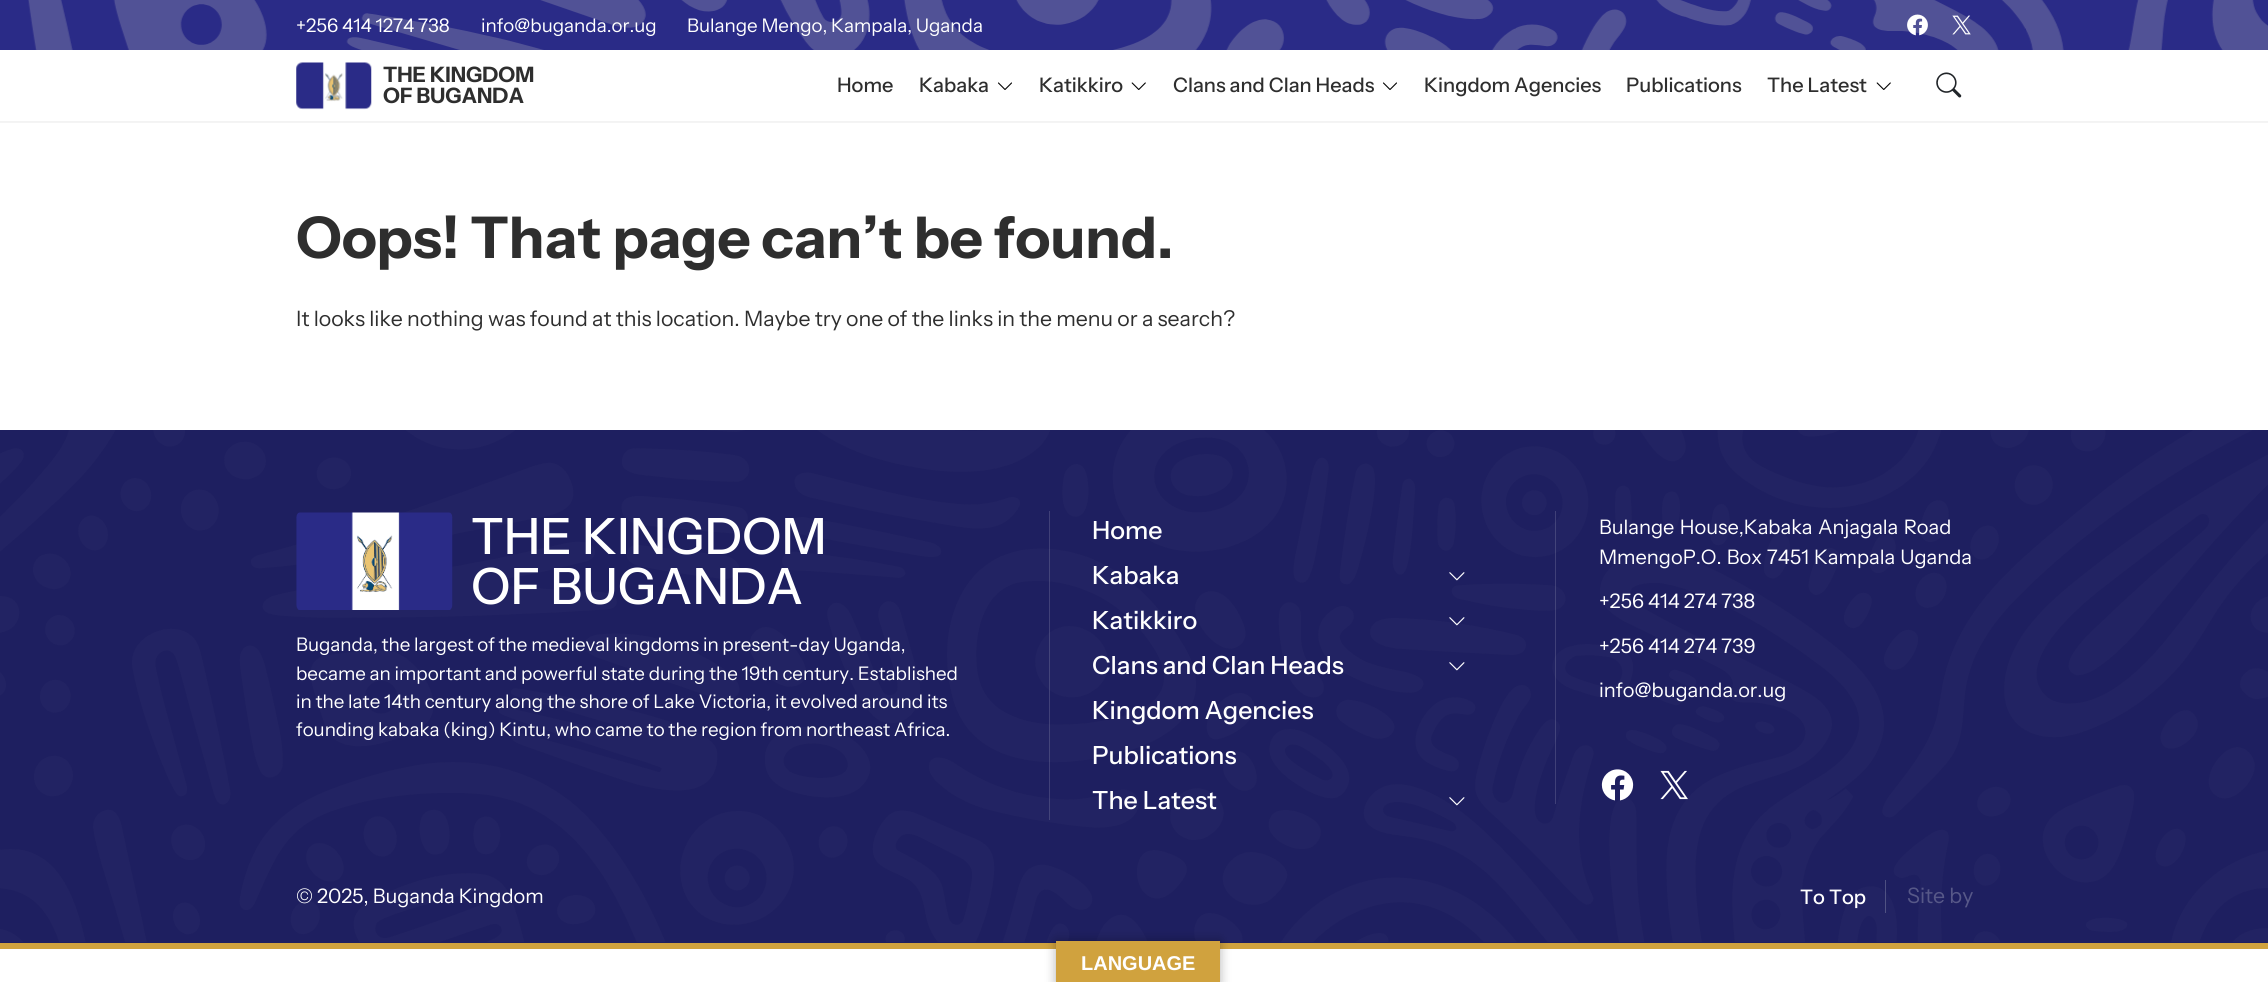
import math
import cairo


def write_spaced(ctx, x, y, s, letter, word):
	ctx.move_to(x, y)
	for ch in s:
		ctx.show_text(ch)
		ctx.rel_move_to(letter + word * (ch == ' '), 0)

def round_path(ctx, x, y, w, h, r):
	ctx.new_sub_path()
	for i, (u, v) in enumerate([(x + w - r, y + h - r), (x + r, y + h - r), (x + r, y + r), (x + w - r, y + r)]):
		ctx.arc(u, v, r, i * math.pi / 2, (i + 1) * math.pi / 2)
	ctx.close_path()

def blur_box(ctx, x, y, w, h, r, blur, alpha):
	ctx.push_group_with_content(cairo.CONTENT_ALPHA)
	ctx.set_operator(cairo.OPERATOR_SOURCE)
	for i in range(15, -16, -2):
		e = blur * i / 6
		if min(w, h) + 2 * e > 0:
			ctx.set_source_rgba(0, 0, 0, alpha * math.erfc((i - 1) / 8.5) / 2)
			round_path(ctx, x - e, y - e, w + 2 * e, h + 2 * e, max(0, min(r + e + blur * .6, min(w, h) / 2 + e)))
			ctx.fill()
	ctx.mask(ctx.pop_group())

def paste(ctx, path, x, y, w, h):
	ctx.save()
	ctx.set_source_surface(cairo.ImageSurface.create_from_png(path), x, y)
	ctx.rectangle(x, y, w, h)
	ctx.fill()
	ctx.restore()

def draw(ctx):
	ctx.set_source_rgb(1, 1, 1)
	ctx.paint()
	ctx.save()
	ctx.rectangle(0, 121, 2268, 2)
	ctx.clip()
	ctx.set_source_rgb(0, 0, 0)
	blur_box(ctx, -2, 1, 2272, 122, 0, 0.5, 0.05)
	ctx.restore()
	ctx.set_source_rgb(0.165, 0.169, 0.529)
	ctx.rectangle(0, 0, 2268, 50)
	ctx.fill()
	paste(ctx, 'media/1.png', 28, 0, 2240, 50)
	ctx.select_font_face('Instrument Sans')
	ctx.set_font_size(18.75)
	ctx.set_source_rgb(1, 1, 1)
	for x, y, s in [
		(296, 32, '+256 414 1274 738'),
		(481, 32, 'info@buganda.or.ug'),
		(687, 32, 'Bulange Mengo, Kampala, Uganda'),
	]:
		ctx.move_to(x, y)
		ctx.show_text(s)
	paste(ctx, 'media/2.png', 1907, 14, 21, 22)
	paste(ctx, 'media/3.png', 1952, 15, 19, 20)
	paste(ctx, 'media/4.png', 296, 62, 76, 48)
	ctx.select_font_face('Instrument Sans', cairo.FONT_SLANT_NORMAL, cairo.FONT_WEIGHT_BOLD)
	ctx.set_font_size(21.25)
	ctx.set_source_rgb(0.18, 0.18, 0.18)
	ctx.move_to(383, 82)
	ctx.show_text('THE KINGDOM')
	ctx.move_to(383, 103)
	ctx.show_text('OF BUGANDA')
	ctx.select_font_face('Instrument Sans Medium')
	ctx.set_font_size(20)
	ctx.move_to(837, 92)
	ctx.show_text('Home')
	ctx.move_to(919, 92)
	ctx.show_text('Kabaka')
	paste(ctx, 'media/5.png', 998, 82, 14, 8)
	ctx.move_to(1039, 92)
	ctx.show_text('Katikkiro')
	paste(ctx, 'media/6.png', 1131, 82, 15, 8)
	ctx.move_to(1173, 92)
	ctx.show_text('Clans and Clan Heads')
	paste(ctx, 'media/5.png', 1383, 82, 14, 8)
	for x, y, s in [
		(1424, 92, 'Kingdom Agencies'),
		(1626, 92, 'Publications'),
		(1767, 92, 'The Latest'),
	]:
		ctx.move_to(x, y)
		ctx.show_text(s)
	paste(ctx, 'media/6.png', 1876, 82, 15, 8)
	paste(ctx, 'media/7.png', 1936, 72, 26, 26)
	ctx.select_font_face('Instrument Sans', cairo.FONT_SLANT_NORMAL, cairo.FONT_WEIGHT_BOLD)
	ctx.set_font_size(57.5)
	ctx.move_to(296, 258)
	ctx.show_text('Oops! That page can’t be found.')
	ctx.select_font_face('Instrument Sans')
	ctx.set_font_size(21.25)
	ctx.move_to(296, 326)
	ctx.show_text('It looks like nothing was found at this location. Maybe try one of the links in the menu or a search?')
	ctx.set_source_rgb(0.118, 0.122, 0.376)
	ctx.rectangle(0, 430, 2268, 513)
	ctx.fill()
	ctx.set_source_rgb(0.816, 0.635, 0.243)
	ctx.rectangle(0, 943, 2268, 6)
	ctx.fill()
	paste(ctx, 'media/8.png', 0, 430, 2268, 512)
	paste(ctx, 'media/9.png', 296, 512, 157, 98)
	ctx.select_font_face('Instrument Sans Medium')
	ctx.set_font_size(50)
	ctx.set_source_rgb(1, 1, 1)
	ctx.move_to(471, 554)
	ctx.show_text('THE KINGDOM')
	ctx.move_to(471, 604)
	ctx.show_text('OF BUGANDA')
	ctx.select_font_face('Instrument Sans')
	ctx.set_font_size(18.75)
	for x, y, s in [
		(296, 651, 'Buganda, the largest of the medieval kingdoms in present-day Uganda,'),
		(296, 680, 'became an important and powerful state during the 19th century. Established'),
		(296, 708, 'in the late 14th century along the shore of Lake Victoria, it evolved around its'),
		(296, 736, 'founding kabaka (king) Kintu, who came to the region from northeast Africa.'),
	]:
		ctx.move_to(x, y)
		ctx.show_text(s)
	ctx.set_source_rgba(1, 1, 1, 0.15)
	ctx.rectangle(1049, 511, 1, 309)
	ctx.fill()
	ctx.select_font_face('Instrument Sans Medium')
	ctx.set_font_size(25)
	ctx.set_source_rgb(1, 1, 1)
	ctx.move_to(1092, 539)
	ctx.show_text('Home')
	ctx.move_to(1092, 584)
	ctx.show_text('Kabaka')
	paste(ctx, 'media/10.png', 1449, 572, 16, 9)
	ctx.move_to(1092, 629)
	ctx.show_text('Katikkiro')
	paste(ctx, 'media/11.png', 1449, 617, 16, 9)
	ctx.move_to(1092, 674)
	ctx.show_text('Clans and Clan Heads')
	paste(ctx, 'media/10.png', 1449, 662, 16, 9)
	for x, y, s in [
		(1092, 719, 'Kingdom Agencies'),
		(1092, 764, 'Publications'),
		(1092, 809, 'The Latest'),
	]:
		ctx.move_to(x, y)
		ctx.show_text(s)
	paste(ctx, 'media/12.png', 1449, 797, 16, 9)
	ctx.set_source_rgba(1, 1, 1, 0.15)
	ctx.rectangle(1555, 511, 1, 293)
	ctx.fill()
	ctx.select_font_face('Instrument Sans')
	ctx.set_font_size(20)
	ctx.set_source_rgb(1, 1, 1)
	write_spaced(ctx, 1599, 534, 'Bulange House,Kabaka Anjagala Road', 0, 1.5)
	write_spaced(ctx, 1599, 564, 'MmengoP.O. Box 7451 Kampala Uganda', 0, 1)
	for x, y, s in [
		(1599, 608, '+256 414 274 738'),
		(1599, 653, '+256 414 274 739'),
		(1599, 697, 'info@buganda.or.ug'),
	]:
		ctx.move_to(x, y)
		ctx.show_text(s)
	paste(ctx, 'media/13.png', 1601, 769, 33, 32)
	paste(ctx, 'media/14.png', 1660, 770, 28, 30)
	ctx.move_to(296, 903)
	ctx.show_text('© 2025, Buganda Kingdom')
	ctx.select_font_face('Instrument Sans Medium')
	ctx.move_to(1800, 904)
	ctx.show_text('To Top')
	ctx.set_source_rgba(0.871, 0.886, 0.902, 0.25)
	ctx.rectangle(1885, 880, 1, 33)
	ctx.fill()
	ctx.select_font_face('Instrument Sans')
	ctx.set_font_size(21.25)
	ctx.set_source_rgb(0.341, 0.345, 0.533)
	ctx.move_to(1907, 903)
	ctx.show_text('Site by')
	ctx.set_source_rgb(0, 0, 0)
	blur_box(ctx, 1056, 941, 164, 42, 0, 5.5, 0.3)
	ctx.set_source_rgb(0.816, 0.635, 0.243)
	ctx.rectangle(1056, 941, 164, 41)
	ctx.fill()
	ctx.select_font_face('Liberation Sans', cairo.FONT_SLANT_NORMAL, cairo.FONT_WEIGHT_BOLD)
	ctx.set_font_size(20)
	ctx.set_source_rgb(1, 1, 1)
	ctx.move_to(1081, 970)
	ctx.show_text('LANGUAGE')


surface = cairo.ImageSurface(cairo.FORMAT_RGB24, 2268, 982)
ctx = cairo.Context(surface)
options = cairo.FontOptions()
options.set_hint_metrics(cairo.HINT_METRICS_OFF)
options.set_hint_style(cairo.HINT_STYLE_NONE)
ctx.set_font_options(options)
ctx.set_miter_limit(4)
draw(ctx)
surface.write_to_png('image.png')
